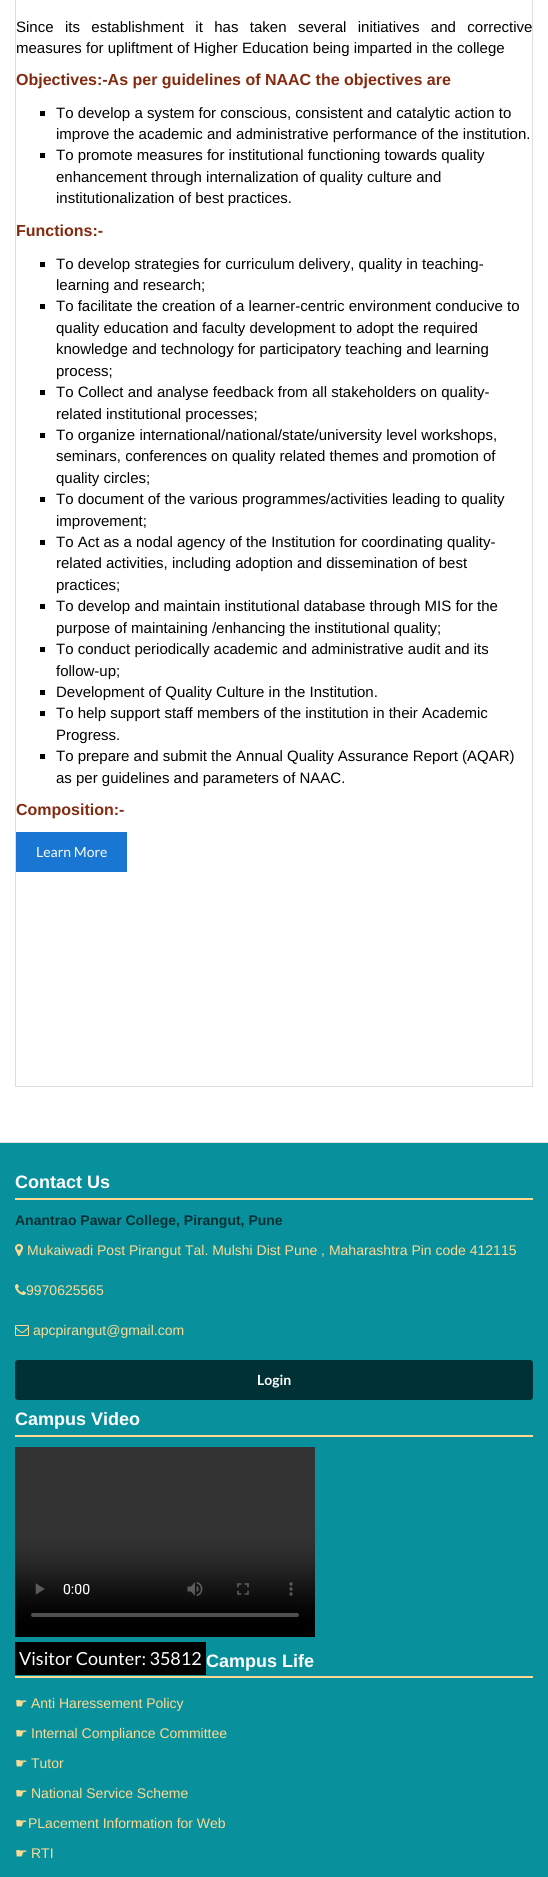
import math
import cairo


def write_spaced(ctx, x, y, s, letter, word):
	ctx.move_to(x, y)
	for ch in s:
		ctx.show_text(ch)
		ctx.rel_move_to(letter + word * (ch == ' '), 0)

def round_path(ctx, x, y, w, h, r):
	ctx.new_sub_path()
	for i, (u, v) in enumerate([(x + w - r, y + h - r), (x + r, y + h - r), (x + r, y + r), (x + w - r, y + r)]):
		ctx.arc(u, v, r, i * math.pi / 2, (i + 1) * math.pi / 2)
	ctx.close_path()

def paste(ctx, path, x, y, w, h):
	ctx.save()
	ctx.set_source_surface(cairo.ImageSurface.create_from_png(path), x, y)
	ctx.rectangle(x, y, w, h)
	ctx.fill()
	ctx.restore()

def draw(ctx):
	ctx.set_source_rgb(1, 1, 1)
	ctx.paint()
	ctx.rectangle(15.5, -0.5, 517, 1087)
	ctx.set_source_rgb(0.867, 0.867, 0.867)
	ctx.set_line_width(1)
	ctx.stroke()
	ctx.select_font_face('Liberation Sans')
	ctx.set_font_size(15)
	ctx.set_source_rgb(0, 0, 0)
	write_spaced(ctx, 16, 32, 'Since its establishment it has taken several initiatives and corrective', 0, 7.25)
	ctx.move_to(16, 53)
	ctx.show_text('measures for upliftment of Higher Education being imparted in the college')
	ctx.select_font_face('Liberation Sans', cairo.FONT_SLANT_NORMAL, cairo.FONT_WEIGHT_BOLD)
	ctx.set_font_size(16)
	ctx.set_source_rgb(0.518, 0.165, 0.059)
	ctx.move_to(16, 85)
	ctx.show_text('Objectives:-As per guidelines of NAAC the objectives are')
	ctx.set_source_rgb(0, 0, 0)
	ctx.rectangle(40, 111, 5, 5)
	ctx.fill()
	ctx.select_font_face('Liberation Sans')
	ctx.set_font_size(15)
	ctx.move_to(56, 118)
	ctx.show_text('To develop a system for conscious, consistent and catalytic action to')
	ctx.move_to(56, 139)
	ctx.show_text('improve the academic and administrative performance of the institution.')
	ctx.rectangle(40, 153, 5, 5)
	ctx.fill()
	for x, y, s in [
		(56, 160, 'To promote measures for institutional functioning towards quality'),
		(56, 182, 'enhancement through internalization of quality culture and'),
		(56, 203, 'institutionalization of best practices.'),
	]:
		ctx.move_to(x, y)
		ctx.show_text(s)
	ctx.select_font_face('Liberation Sans', cairo.FONT_SLANT_NORMAL, cairo.FONT_WEIGHT_BOLD)
	ctx.set_font_size(16)
	ctx.set_source_rgb(0.518, 0.165, 0.059)
	ctx.move_to(16, 236)
	ctx.show_text('Functions:-')
	ctx.set_source_rgb(0, 0, 0)
	ctx.rectangle(40, 262, 5, 5)
	ctx.fill()
	ctx.select_font_face('Liberation Sans')
	ctx.set_font_size(15)
	ctx.move_to(56, 269)
	ctx.show_text('To develop strategies for curriculum delivery, quality in teaching-')
	ctx.move_to(56, 290)
	ctx.show_text('learning and research;')
	ctx.rectangle(40, 304, 5, 5)
	ctx.fill()
	for x, y, s in [
		(56, 311, 'To facilitate the creation of a learner-centric environment conducive to'),
		(56, 333, 'quality education and faculty development to adopt the required'),
		(56, 354, 'knowledge and technology for participatory teaching and learning'),
		(56, 376, 'process;'),
	]:
		ctx.move_to(x, y)
		ctx.show_text(s)
	ctx.rectangle(40, 390, 5, 5)
	ctx.fill()
	ctx.move_to(56, 397)
	ctx.show_text('To Collect and analyse feedback from all stakeholders on quality-')
	ctx.move_to(56, 419)
	ctx.show_text('related institutional processes;')
	ctx.rectangle(40, 433, 5, 5)
	ctx.fill()
	for x, y, s in [
		(56, 440, 'To organize international/national/state/university level workshops,'),
		(56, 461, 'seminars, conferences on quality related themes and promotion of'),
		(56, 483, 'quality circles;'),
	]:
		ctx.move_to(x, y)
		ctx.show_text(s)
	ctx.rectangle(40, 497, 5, 5)
	ctx.fill()
	ctx.move_to(56, 504)
	ctx.show_text('To document of the various programmes/activities leading to quality')
	ctx.move_to(56, 526)
	ctx.show_text('improvement;')
	ctx.rectangle(40, 540, 5, 5)
	ctx.fill()
	for x, y, s in [
		(56, 547, 'To Act as a nodal agency of the Institution for coordinating quality-'),
		(56, 568, 'related activities, including adoption and dissemination of best'),
		(56, 590, 'practices;'),
	]:
		ctx.move_to(x, y)
		ctx.show_text(s)
	ctx.rectangle(40, 604, 5, 5)
	ctx.fill()
	ctx.move_to(56, 611)
	ctx.show_text('To develop and maintain institutional database through MIS for the')
	ctx.move_to(56, 633)
	ctx.show_text('purpose of maintaining /enhancing the institutional quality;')
	ctx.rectangle(40, 647, 5, 5)
	ctx.fill()
	ctx.move_to(56, 654)
	ctx.show_text('To conduct periodically academic and administrative audit and its')
	ctx.move_to(56, 676)
	ctx.show_text('follow-up;')
	ctx.rectangle(40, 690, 5, 5)
	ctx.fill()
	ctx.move_to(56, 697)
	ctx.show_text('Development of Quality Culture in the Institution.')
	ctx.rectangle(40, 711, 5, 5)
	ctx.fill()
	ctx.move_to(56, 718)
	ctx.show_text('To help support staff members of the institution in their Academic')
	ctx.move_to(56, 740)
	ctx.show_text('Progress.')
	ctx.rectangle(40, 754, 5, 5)
	ctx.fill()
	ctx.move_to(56, 761)
	ctx.show_text('To prepare and submit the Annual Quality Assurance Report (AQAR)')
	ctx.move_to(56, 783)
	ctx.show_text('as per guidelines and parameters of NAAC.')
	ctx.select_font_face('Liberation Sans', cairo.FONT_SLANT_NORMAL, cairo.FONT_WEIGHT_BOLD)
	ctx.set_font_size(16)
	ctx.set_source_rgb(0.518, 0.165, 0.059)
	ctx.move_to(16, 815)
	ctx.show_text('Composition:-')
	ctx.set_source_rgb(0.098, 0.463, 0.824)
	ctx.rectangle(16, 832, 111, 40)
	ctx.fill()
	ctx.select_font_face('Lato')
	ctx.set_font_size(14)
	ctx.set_source_rgb(1, 1, 1)
	ctx.move_to(36, 857)
	ctx.show_text('Learn More')
	ctx.set_source_rgb(0.035, 0.569, 0.612)
	ctx.rectangle(0, 1143, 548, 734)
	ctx.fill()
	ctx.set_source_rgb(0.898, 0.898, 0.898)
	ctx.rectangle(0, 1142, 548, 1)
	ctx.fill()
	ctx.set_source_rgb(0.992, 0.851, 0.569)
	ctx.rectangle(15, 1198, 518, 2)
	ctx.fill()
	ctx.select_font_face('Liberation Sans', cairo.FONT_SLANT_NORMAL, cairo.FONT_WEIGHT_BOLD)
	ctx.set_font_size(18)
	ctx.set_source_rgb(1, 1, 1)
	ctx.move_to(15, 1188)
	ctx.show_text('Contact Us')
	ctx.set_font_size(14)
	ctx.set_source_rgb(0, 0.192, 0.208)
	ctx.move_to(15, 1225)
	ctx.show_text('Anantrao Pawar College, Pirangut, Pune')
	paste(ctx, 'media/1.png', 15, 1244, 8, 12)
	ctx.select_font_face('Liberation Sans')
	ctx.set_source_rgb(0.992, 0.851, 0.569)
	ctx.move_to(27, 1255)
	ctx.show_text('Mukaiwadi Post Pirangut Tal. Mulshi Dist Pune , Maharashtra Pin code 412115')
	paste(ctx, 'media/2.png', 15, 1284, 11, 11)
	ctx.move_to(26, 1295)
	ctx.show_text('9970625565')
	paste(ctx, 'media/3.png', 15, 1325, 14, 11)
	ctx.move_to(33, 1335)
	ctx.show_text('apcpirangut@gmail.com')
	ctx.set_source_rgb(0, 0.192, 0.208)
	round_path(ctx, 15, 1360, 518, 40, 3)
	ctx.fill()
	ctx.select_font_face('Lato', cairo.FONT_SLANT_NORMAL, cairo.FONT_WEIGHT_BOLD)
	ctx.set_source_rgb(1, 1, 1)
	ctx.move_to(257, 1385)
	ctx.show_text('Login')
	ctx.set_source_rgb(0.992, 0.851, 0.569)
	ctx.rectangle(15, 1435, 518, 2)
	ctx.fill()
	ctx.select_font_face('Liberation Sans', cairo.FONT_SLANT_NORMAL, cairo.FONT_WEIGHT_BOLD)
	ctx.set_font_size(18)
	ctx.set_source_rgb(1, 1, 1)
	ctx.move_to(15, 1425)
	ctx.show_text('Campus Video')
	paste(ctx, 'media/4.png', 15, 1447, 300, 190)
	ctx.set_source_rgb(0, 0, 0)
	ctx.rectangle(15, 1642, 191, 33)
	ctx.fill()
	ctx.select_font_face('Lato')
	ctx.set_source_rgb(1, 1, 1)
	ctx.move_to(19, 1665)
	ctx.show_text('Visitor Counter: 35812')
	ctx.set_source_rgb(0.992, 0.851, 0.569)
	ctx.rectangle(15, 1676, 518, 2)
	ctx.fill()
	ctx.select_font_face('Liberation Sans', cairo.FONT_SLANT_NORMAL, cairo.FONT_WEIGHT_BOLD)
	ctx.set_source_rgb(1, 1, 1)
	ctx.move_to(206, 1667)
	ctx.show_text('Campus Life')
	ctx.select_font_face('DejaVu Sans')
	ctx.set_font_size(14)
	ctx.set_source_rgb(0.992, 0.851, 0.569)
	ctx.move_to(15, 1708)
	ctx.show_text('☛')
	ctx.select_font_face('Liberation Sans')
	ctx.move_to(31, 1708)
	ctx.show_text('Anti Haressement Policy')
	ctx.select_font_face('DejaVu Sans')
	ctx.move_to(15, 1738)
	ctx.show_text('☛')
	ctx.select_font_face('Liberation Sans')
	ctx.move_to(31, 1738)
	ctx.show_text('Internal Compliance Committee')
	ctx.select_font_face('DejaVu Sans')
	ctx.move_to(15, 1768)
	ctx.show_text('☛')
	ctx.select_font_face('Liberation Sans')
	ctx.move_to(31, 1768)
	ctx.show_text('Tutor')
	ctx.select_font_face('DejaVu Sans')
	ctx.move_to(15, 1798)
	ctx.show_text('☛')
	ctx.select_font_face('Liberation Sans')
	ctx.move_to(31, 1798)
	ctx.show_text('National Service Scheme')
	ctx.select_font_face('DejaVu Sans')
	ctx.move_to(15, 1828)
	ctx.show_text('☛')
	ctx.select_font_face('Liberation Sans')
	ctx.move_to(28, 1828)
	ctx.show_text('PLacement Information for Web')
	ctx.select_font_face('DejaVu Sans')
	ctx.move_to(15, 1858)
	ctx.show_text('☛')
	ctx.select_font_face('Liberation Sans')
	ctx.move_to(31, 1858)
	ctx.show_text('RTI')


surface = cairo.ImageSurface(cairo.FORMAT_RGB24, 548, 1877)
ctx = cairo.Context(surface)
options = cairo.FontOptions()
options.set_hint_metrics(cairo.HINT_METRICS_OFF)
options.set_hint_style(cairo.HINT_STYLE_NONE)
ctx.set_font_options(options)
ctx.set_miter_limit(4)
draw(ctx)
surface.write_to_png('image.png')
